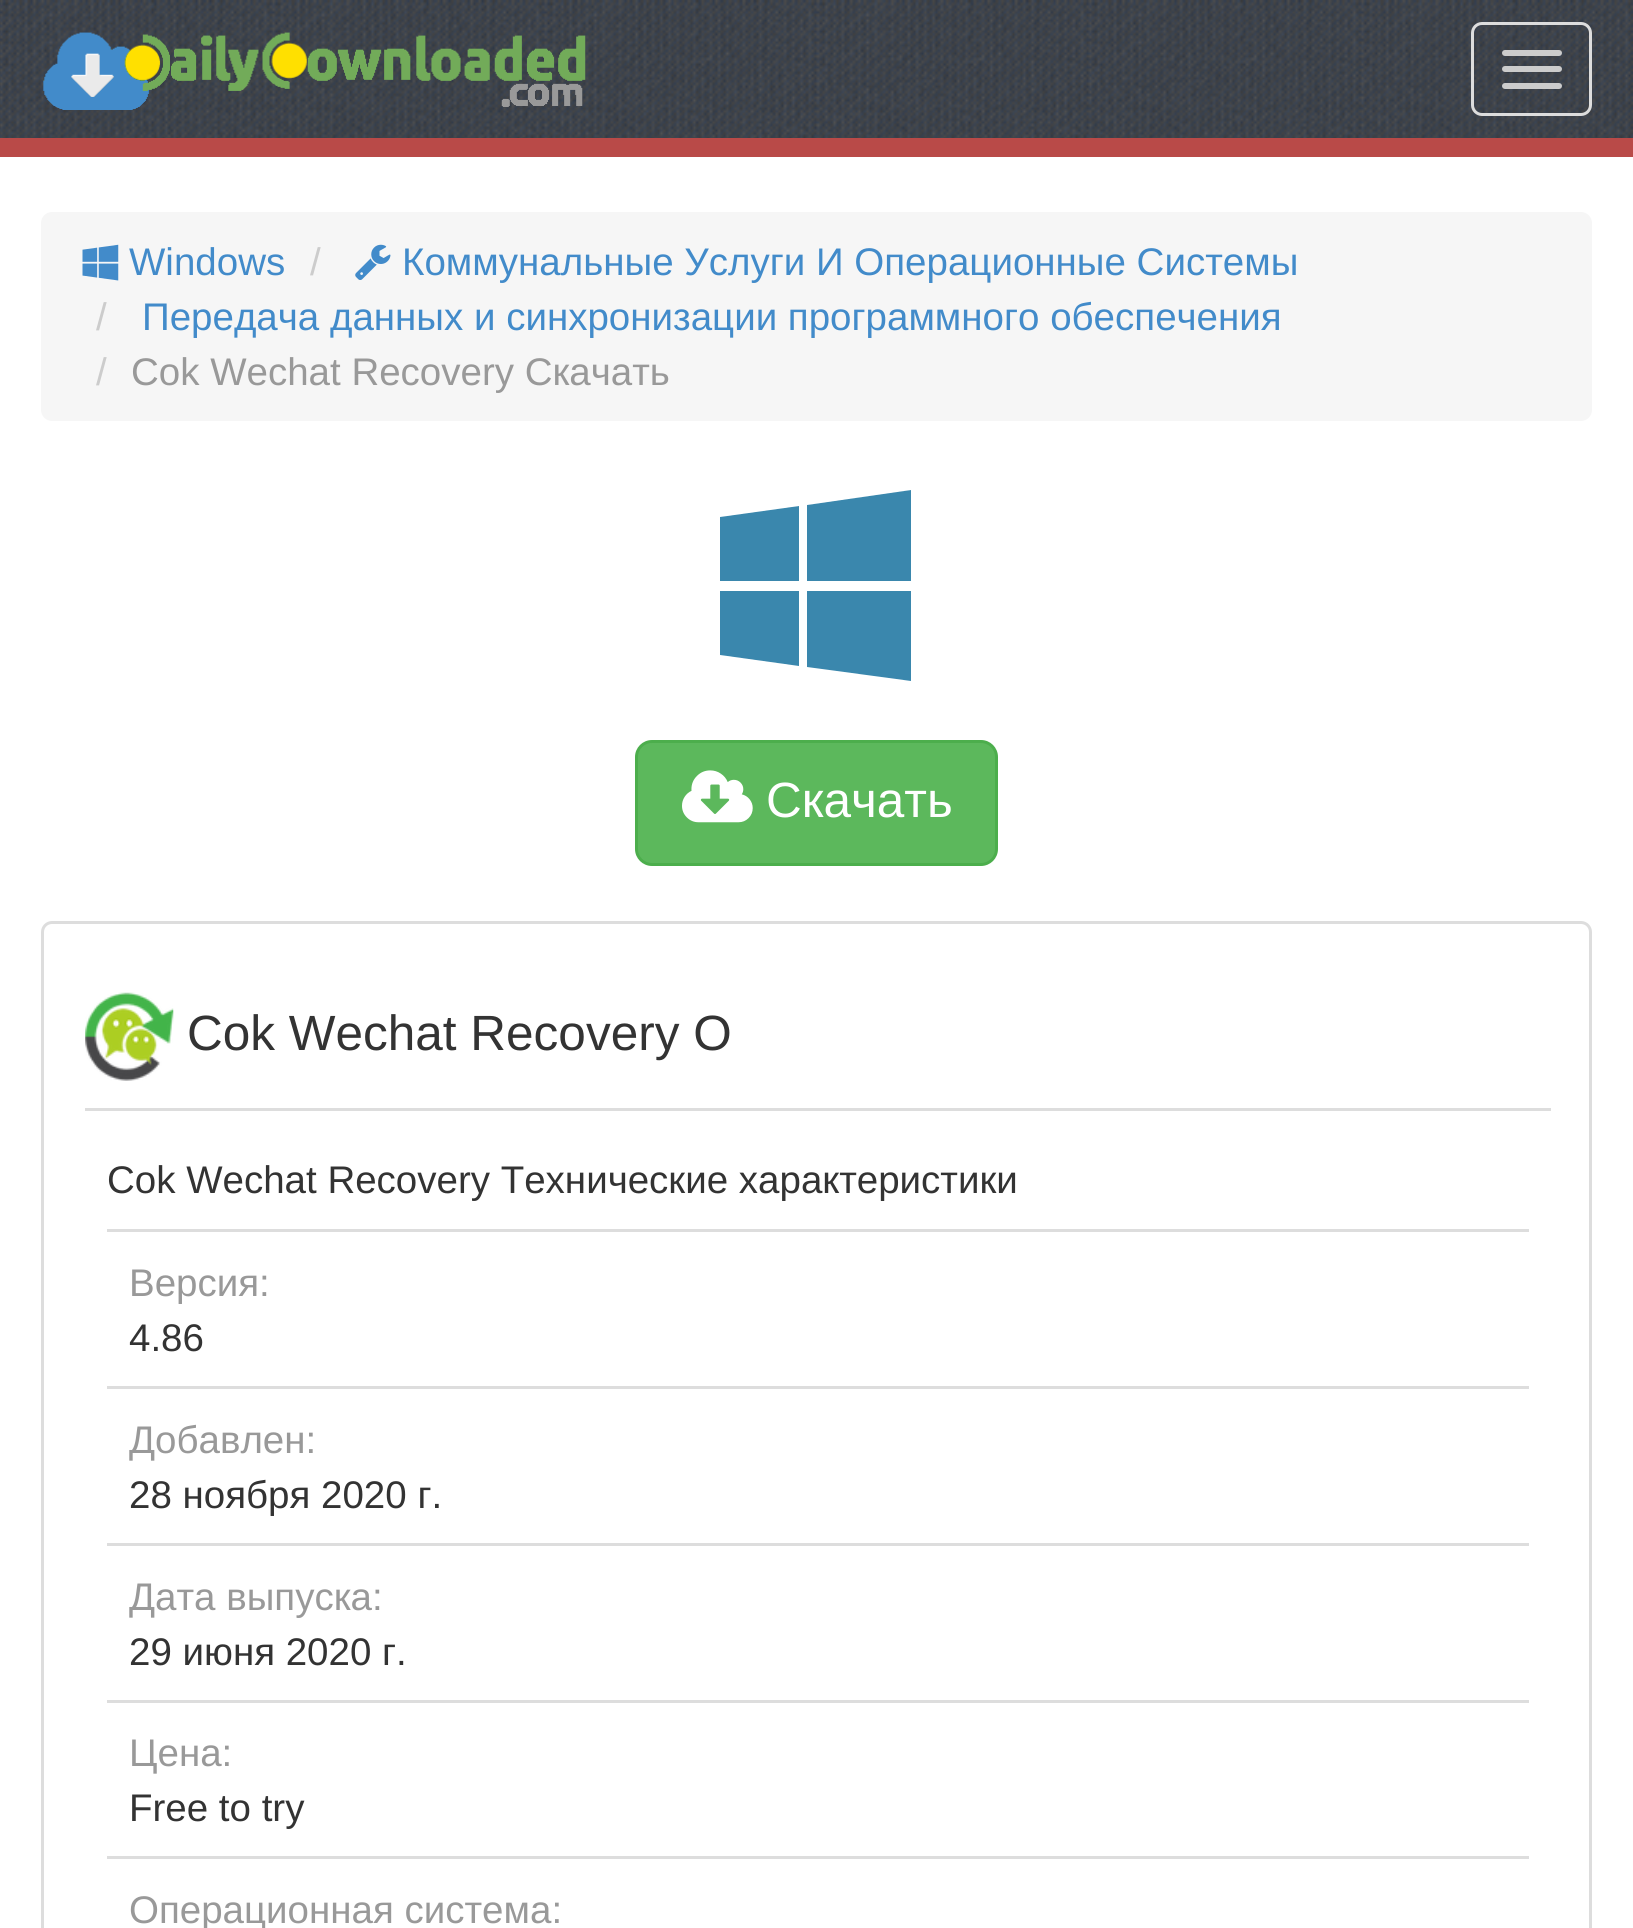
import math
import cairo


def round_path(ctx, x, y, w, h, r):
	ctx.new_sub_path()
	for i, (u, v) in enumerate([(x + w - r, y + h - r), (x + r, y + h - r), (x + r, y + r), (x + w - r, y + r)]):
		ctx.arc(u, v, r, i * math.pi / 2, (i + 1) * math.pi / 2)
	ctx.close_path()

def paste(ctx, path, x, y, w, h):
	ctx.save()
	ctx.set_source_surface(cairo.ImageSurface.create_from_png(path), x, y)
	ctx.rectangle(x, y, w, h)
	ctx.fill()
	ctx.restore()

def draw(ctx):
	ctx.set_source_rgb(1, 1, 1)
	ctx.paint()
	paste(ctx, 'media/1.png', 0, 0, 1633, 138)
	ctx.set_source_rgb(0.725, 0.29, 0.282)
	ctx.rectangle(0, 138, 1633, 19)
	ctx.fill()
	paste(ctx, 'media/2.png', 43, 32, 543, 78)
	round_path(ctx, 1472.5, 23.5, 118, 91, 9.5)
	ctx.set_source_rgb(0.867, 0.867, 0.867)
	ctx.set_line_width(3)
	ctx.stroke()
	ctx.set_source_rgb(0.8, 0.8, 0.8)
	round_path(ctx, 1502, 50, 60, 6, 3)
	ctx.fill()
	round_path(ctx, 1502, 66, 60, 6, 3)
	ctx.fill()
	round_path(ctx, 1502, 83, 60, 6, 3)
	ctx.fill()
	ctx.set_source_rgb(0.961, 0.961, 0.961)
	round_path(ctx, 41, 212, 1551, 209, 11)
	ctx.fill()
	paste(ctx, 'media/3.png', 82, 244, 37, 37)
	ctx.select_font_face('Liberation Sans')
	ctx.set_font_size(38.5)
	ctx.set_source_rgb(0.259, 0.545, 0.792)
	ctx.move_to(129, 275)
	ctx.show_text('Windows')
	ctx.set_source_rgb(0.8, 0.8, 0.8)
	ctx.move_to(310, 275)
	ctx.show_text('/')
	paste(ctx, 'media/4.png', 355, 244, 36, 36)
	ctx.set_source_rgb(0.259, 0.545, 0.792)
	ctx.move_to(402, 275)
	ctx.show_text('Коммунальные Услуги И Операционные Системы')
	ctx.set_source_rgb(0.8, 0.8, 0.8)
	ctx.move_to(96, 330)
	ctx.show_text('/')
	ctx.set_source_rgb(0.259, 0.545, 0.792)
	ctx.move_to(142, 330)
	ctx.show_text('Передача данных и синхронизации программного обеспечения')
	ctx.set_source_rgb(0.8, 0.8, 0.8)
	ctx.move_to(96, 385)
	ctx.show_text('/')
	ctx.set_source_rgb(0.6, 0.6, 0.6)
	ctx.move_to(131, 385)
	ctx.show_text('Cok Wechat Recovery Скачать')
	ctx.set_source_rgb(0.227, 0.529, 0.678)
	ctx.new_path()
	ctx.move_to(799, 591)
	ctx.line_to(799, 666)
	ctx.line_to(720, 655)
	ctx.line_to(720, 591)
	ctx.close_path()
	ctx.move_to(799, 506)
	ctx.line_to(799, 581)
	ctx.line_to(720, 581)
	ctx.line_to(720, 517)
	ctx.close_path()
	ctx.move_to(911, 591)
	ctx.line_to(911, 681)
	ctx.line_to(807, 667)
	ctx.line_to(807, 591)
	ctx.close_path()
	ctx.move_to(911, 490)
	ctx.line_to(911, 581)
	ctx.line_to(807, 581)
	ctx.line_to(807, 505)
	ctx.close_path()
	ctx.fill()
	ctx.set_source_rgb(0.361, 0.722, 0.361)
	round_path(ctx, 636.5, 741.5, 360, 123, 15.5)
	ctx.fill_preserve()
	ctx.set_source_rgb(0.298, 0.682, 0.298)
	ctx.stroke()
	paste(ctx, 'media/5.png', 682, 770, 71, 53)
	ctx.set_font_size(49.5)
	ctx.set_source_rgb(1, 1, 1)
	ctx.move_to(766, 817)
	ctx.show_text('Скачать')
	round_path(ctx, 42.5, 922.5, 1548, 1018, 9.5)
	ctx.set_source_rgb(0.867, 0.867, 0.867)
	ctx.stroke()
	paste(ctx, 'media/6.png', 85, 992, 89, 89)
	ctx.set_source_rgb(0.2, 0.2, 0.2)
	ctx.move_to(187, 1050)
	ctx.show_text('Cok Wechat Recovery О')
	ctx.set_source_rgb(0.867, 0.867, 0.867)
	ctx.rectangle(85, 1108, 1466, 3)
	ctx.fill()
	ctx.set_font_size(38.5)
	ctx.set_source_rgb(0.2, 0.2, 0.2)
	ctx.move_to(107, 1193)
	ctx.show_text('Cok Wechat Recovery Технические характеристики')
	ctx.set_source_rgb(0.867, 0.867, 0.867)
	ctx.rectangle(107, 1229, 1422, 3)
	ctx.fill()
	ctx.set_source_rgb(0.6, 0.6, 0.6)
	ctx.move_to(129, 1296)
	ctx.show_text('Версия:')
	ctx.set_source_rgb(0.2, 0.2, 0.2)
	ctx.move_to(129, 1351)
	ctx.show_text('4.86')
	ctx.set_source_rgb(0.867, 0.867, 0.867)
	ctx.rectangle(107, 1386, 1422, 3)
	ctx.fill()
	ctx.set_source_rgb(0.6, 0.6, 0.6)
	ctx.move_to(129, 1453)
	ctx.show_text('Добавлен:')
	ctx.set_source_rgb(0.2, 0.2, 0.2)
	ctx.move_to(129, 1508)
	ctx.show_text('28 ноября 2020 г.')
	ctx.set_source_rgb(0.867, 0.867, 0.867)
	ctx.rectangle(107, 1543, 1422, 3)
	ctx.fill()
	ctx.set_source_rgb(0.6, 0.6, 0.6)
	ctx.move_to(129, 1610)
	ctx.show_text('Дата выпуска:')
	ctx.set_source_rgb(0.2, 0.2, 0.2)
	ctx.move_to(129, 1665)
	ctx.show_text('29 июня 2020 г.')
	ctx.set_source_rgb(0.867, 0.867, 0.867)
	ctx.rectangle(107, 1700, 1422, 3)
	ctx.fill()
	ctx.set_source_rgb(0.6, 0.6, 0.6)
	ctx.move_to(129, 1766)
	ctx.show_text('Цена:')
	ctx.set_source_rgb(0.2, 0.2, 0.2)
	ctx.move_to(129, 1821)
	ctx.show_text('Free to try')
	ctx.set_source_rgb(0.867, 0.867, 0.867)
	ctx.rectangle(107, 1856, 1422, 3)
	ctx.fill()
	ctx.set_source_rgb(0.6, 0.6, 0.6)
	ctx.move_to(129, 1923)
	ctx.show_text('Операционная система:')


surface = cairo.ImageSurface(cairo.FORMAT_RGB24, 1633, 1928)
ctx = cairo.Context(surface)
options = cairo.FontOptions()
options.set_hint_metrics(cairo.HINT_METRICS_OFF)
options.set_hint_style(cairo.HINT_STYLE_NONE)
ctx.set_font_options(options)
ctx.set_miter_limit(4)
draw(ctx)
surface.write_to_png('image.png')
